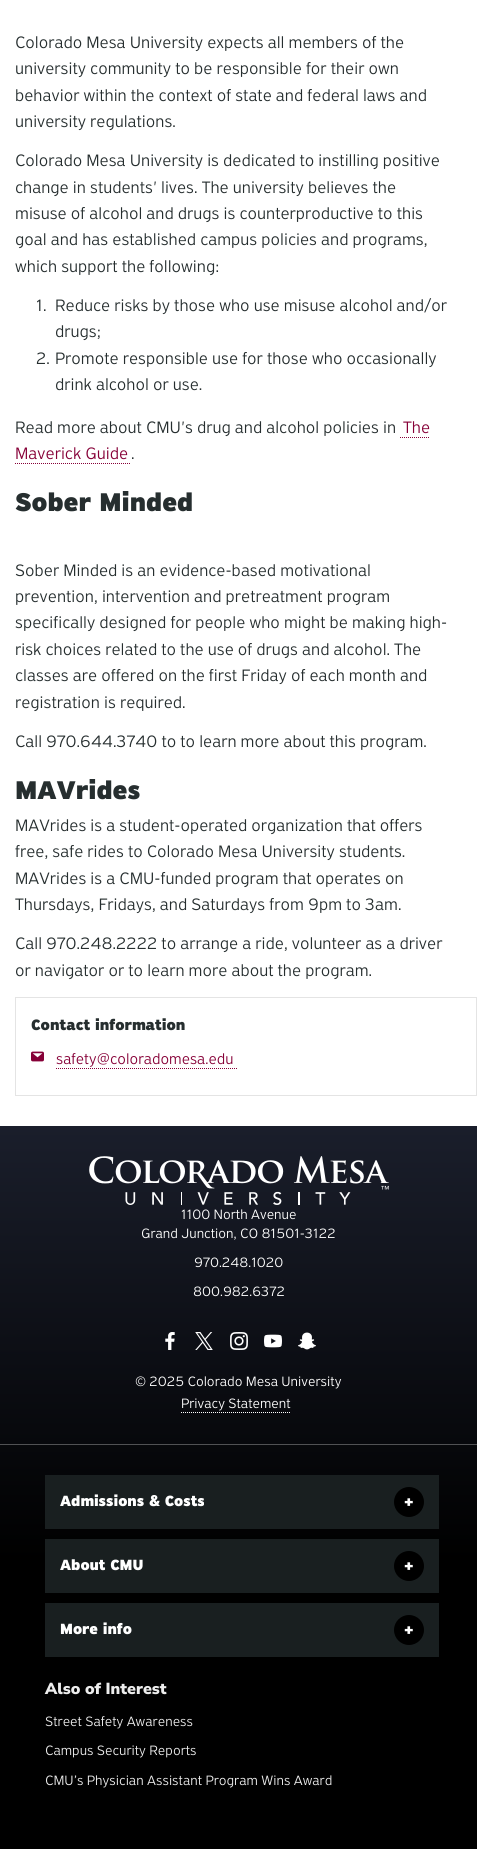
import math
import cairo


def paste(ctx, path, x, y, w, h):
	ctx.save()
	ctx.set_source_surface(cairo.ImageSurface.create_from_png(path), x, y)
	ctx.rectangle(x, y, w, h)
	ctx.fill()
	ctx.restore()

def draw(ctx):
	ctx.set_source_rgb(1, 1, 1)
	ctx.paint()
	ctx.select_font_face('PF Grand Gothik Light')
	ctx.set_font_size(17.6)
	ctx.set_source_rgb(0.149, 0.18, 0.184)
	for x, y, s in [
		(15, 48, 'Colorado Mesa University expects all members of the'),
		(15, 74, 'university community to be responsible for their own'),
		(15, 101, 'behavior within the context of state and federal laws and'),
		(15, 127, 'university regulations.'),
		(15, 166, 'Colorado Mesa University is dedicated to instilling positive'),
		(15, 193, 'change in students\' lives. The university believes the'),
		(15, 219, 'misuse of alcohol and drugs is counterproductive to this'),
		(15, 245, 'goal and has established campus policies and programs,'),
		(15, 272, 'which support the following:'),
		(36, 311, '1.'),
		(55, 311, 'Reduce risks by those who use misuse alcohol and/or'),
		(55, 337, 'drugs;'),
		(36, 364, '2.'),
		(55, 364, 'Promote responsible use for those who occasionally'),
		(55, 390, 'drink alcohol or use.'),
		(15, 433, 'Read more about CMU\'s drug and alcohol policies in'),
	]:
		ctx.move_to(x, y)
		ctx.show_text(s)
	ctx.set_source_rgb(0.525, 0, 0.216)
	ctx.move_to(403, 433)
	ctx.show_text('The')
	ctx.new_path()
	ctx.move_to(400, 437.5)
	ctx.line_to(430, 437.5)
	ctx.set_line_width(1)
	ctx.set_dash([1, 1])
	ctx.stroke()
	ctx.move_to(15, 459)
	ctx.show_text('Maverick Guide')
	ctx.new_path()
	ctx.move_to(15, 463.5)
	ctx.line_to(131, 463.5)
	ctx.stroke()
	ctx.set_source_rgb(0.149, 0.18, 0.184)
	ctx.move_to(131, 459)
	ctx.show_text('.')
	ctx.select_font_face('PF Grand Gothik Black')
	ctx.set_font_size(27.25)
	ctx.move_to(15, 511)
	ctx.show_text('Sober Minded')
	ctx.select_font_face('PF Grand Gothik Light')
	ctx.set_font_size(17.6)
	for x, y, s in [
		(15, 576, 'Sober Minded is an evidence-based motivational'),
		(15, 602, 'prevention, intervention and pretreatment program'),
		(15, 628, 'specifically designed for people who might be making high-'),
		(15, 655, 'risk choices related to the use of drugs and alcohol. The'),
		(15, 681, 'classes are offered on the first Friday of each month and'),
		(15, 708, 'registration is required.'),
		(15, 747, 'Call 970.644.3740 to to learn more about this program.'),
	]:
		ctx.move_to(x, y)
		ctx.show_text(s)
	ctx.select_font_face('PF Grand Gothik Black')
	ctx.set_font_size(27.25)
	ctx.move_to(15, 799)
	ctx.show_text('MAVrides')
	ctx.select_font_face('PF Grand Gothik Light')
	ctx.set_font_size(17.6)
	for x, y, s in [
		(15, 831, 'MAVrides is a student-operated organization that offers'),
		(15, 857, 'free, safe rides to Colorado Mesa University students.'),
		(15, 884, 'MAVrides is a CMU-funded program that operates on'),
		(15, 910, 'Thursdays, Fridays, and Saturdays from 9pm to 3am.'),
		(15, 949, 'Call 970.248.2222 to arrange a ride, volunteer as a driver'),
		(15, 976, 'or navigator or to learn more about the program.'),
	]:
		ctx.move_to(x, y)
		ctx.show_text(s)
	ctx.rectangle(15.5, 997.5, 461, 98)
	ctx.set_source_rgb(0.894, 0.894, 0.894)
	ctx.set_dash([])
	ctx.stroke()
	ctx.select_font_face('PF Grand Gothik Black')
	ctx.set_font_size(16)
	ctx.set_source_rgb(0.149, 0.18, 0.184)
	ctx.move_to(31, 1030)
	ctx.show_text('Contact information')
	paste(ctx, 'media/1.png', 31, 1051, 13, 11)
	ctx.select_font_face('PF Grand Gothik Light')
	ctx.set_source_rgb(0.525, 0, 0.216)
	ctx.move_to(56, 1064)
	ctx.show_text('safety@coloradomesa.edu')
	ctx.new_path()
	ctx.move_to(56, 1068.5)
	ctx.line_to(238, 1068.5)
	ctx.set_dash([1, 1])
	ctx.stroke()
	gradient = cairo.LinearGradient(239, 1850, 239, 1126)
	gradient.add_color_stop_rgba(0.4, 0, 0, 0, 1)
	gradient.add_color_stop_rgba(1, 0.102, 0.118, 0.169, 1)
	ctx.set_source(gradient)
	ctx.rectangle(0, 1126, 477, 723)
	ctx.fill()
	ctx.set_source_rgb(0.318, 0.322, 0.329)
	ctx.rectangle(0, 1444, 477, 1)
	ctx.fill()
	paste(ctx, 'media/2.png', 89, 1156, 300, 49)
	ctx.set_font_size(14.4)
	ctx.set_source_rgb(1, 1, 1)
	for x, y, s in [
		(181, 1219, '1100 North Avenue'),
		(141, 1238, 'Grand Junction, CO 81501-3122'),
		(194, 1267, '970.248.1020'),
		(193, 1296, '800.982.6372'),
	]:
		ctx.move_to(x, y)
		ctx.show_text(s)
	paste(ctx, 'media/3.png', 165, 1332, 10, 18)
	paste(ctx, 'media/4.png', 195, 1332, 18, 18)
	paste(ctx, 'media/5.png', 230, 1332, 18, 18)
	paste(ctx, 'media/6.png', 264, 1334, 18, 14)
	paste(ctx, 'media/7.png', 298, 1332, 18, 18)
	ctx.move_to(135, 1386)
	ctx.show_text('© 2025 Colorado Mesa University')
	ctx.move_to(181, 1408)
	ctx.show_text('Privacy Statement')
	ctx.new_path()
	ctx.move_to(181, 1412.5)
	ctx.line_to(291, 1412.5)
	ctx.stroke()
	ctx.set_source_rgb(0.098, 0.122, 0.125)
	ctx.rectangle(45, 1475, 394, 54)
	ctx.fill()
	ctx.select_font_face('PF Grand Gothik Black')
	ctx.set_font_size(15.75)
	ctx.set_source_rgb(1, 1, 1)
	ctx.move_to(60, 1506)
	ctx.show_text('Admissions & Costs')
	ctx.set_source_rgb(0, 0, 0)
	ctx.new_path()
	ctx.arc(409, 1502, 15, 0, 2 * math.pi)
	ctx.fill()
	ctx.set_source_rgb(1, 1, 1)
	ctx.move_to(404, 1507)
	ctx.show_text('+')
	ctx.set_source_rgb(0.098, 0.122, 0.125)
	ctx.rectangle(45, 1539, 394, 54)
	ctx.fill()
	ctx.set_source_rgb(1, 1, 1)
	ctx.move_to(60, 1570)
	ctx.show_text('About CMU')
	ctx.set_source_rgb(0, 0, 0)
	ctx.new_path()
	ctx.arc(409, 1566, 15, 0, 2 * math.pi)
	ctx.fill()
	ctx.set_source_rgb(1, 1, 1)
	ctx.move_to(404, 1571)
	ctx.show_text('+')
	ctx.set_source_rgb(0.098, 0.122, 0.125)
	ctx.rectangle(45, 1603, 394, 54)
	ctx.fill()
	ctx.set_source_rgb(1, 1, 1)
	ctx.move_to(60, 1634)
	ctx.show_text('More info')
	ctx.set_source_rgb(0, 0, 0)
	ctx.new_path()
	ctx.arc(409, 1630, 15, 0, 2 * math.pi)
	ctx.fill()
	ctx.set_source_rgb(1, 1, 1)
	ctx.move_to(404, 1635)
	ctx.show_text('+')
	ctx.select_font_face('Nunito Sans Black')
	ctx.set_font_size(16)
	ctx.set_source_rgb(0.929, 0.929, 0.929)
	ctx.move_to(45, 1694)
	ctx.show_text('Also of Interest')
	ctx.select_font_face('PF Grand Gothik Light')
	ctx.set_font_size(14.4)
	for x, y, s in [
		(45, 1726, 'Street Safety Awareness'),
		(45, 1755, 'Campus Security Reports'),
		(45, 1785, 'CMU’s Physician Assistant Program Wins Award'),
	]:
		ctx.move_to(x, y)
		ctx.show_text(s)


surface = cairo.ImageSurface(cairo.FORMAT_RGB24, 477, 1849)
ctx = cairo.Context(surface)
options = cairo.FontOptions()
options.set_hint_metrics(cairo.HINT_METRICS_OFF)
options.set_hint_style(cairo.HINT_STYLE_NONE)
ctx.set_font_options(options)
ctx.set_miter_limit(4)
draw(ctx)
surface.write_to_png('image.png')
